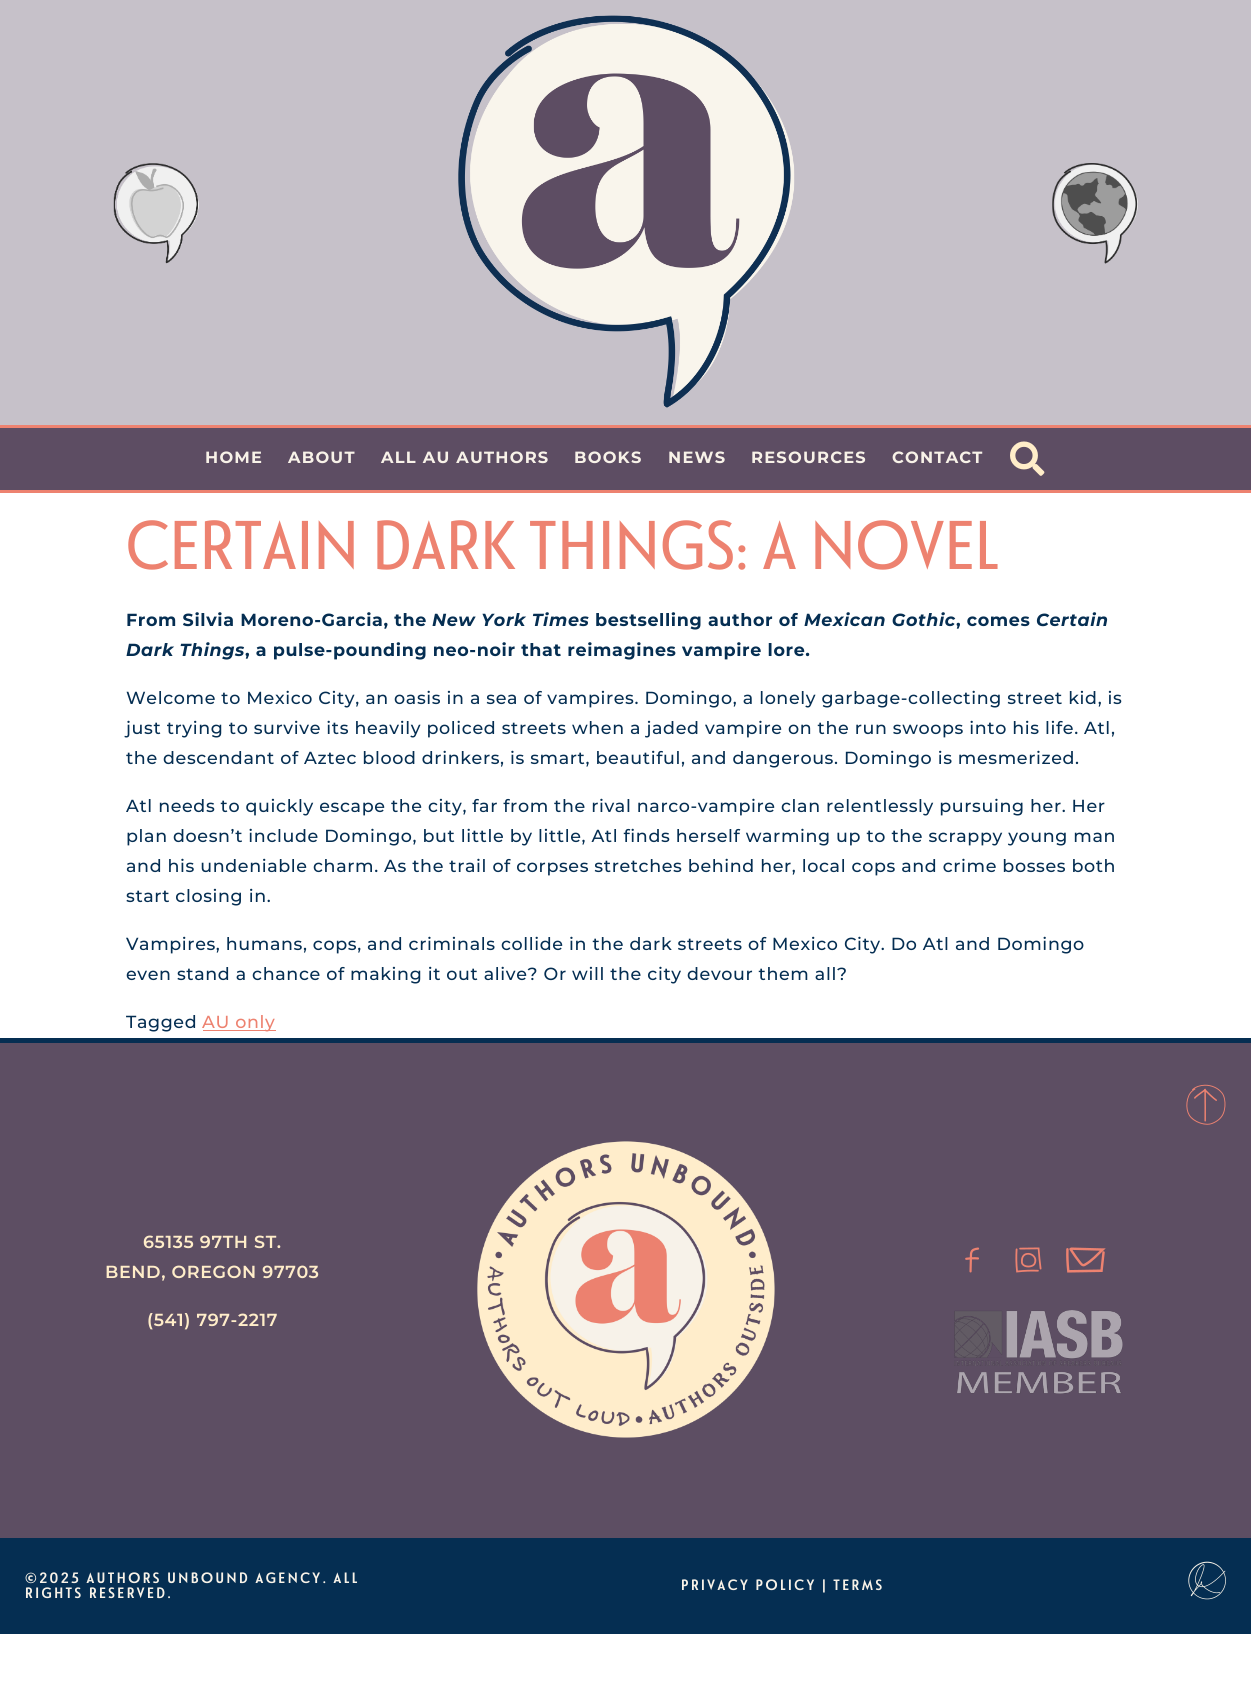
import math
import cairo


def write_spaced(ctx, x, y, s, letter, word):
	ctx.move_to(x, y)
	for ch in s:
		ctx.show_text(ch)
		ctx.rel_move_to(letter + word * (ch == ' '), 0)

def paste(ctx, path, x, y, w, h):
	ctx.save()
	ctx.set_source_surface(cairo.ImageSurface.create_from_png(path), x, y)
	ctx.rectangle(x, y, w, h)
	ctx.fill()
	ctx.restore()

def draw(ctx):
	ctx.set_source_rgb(1, 1, 1)
	ctx.paint()
	ctx.set_source_rgb(0.776, 0.757, 0.788)
	ctx.rectangle(0, 0, 1251, 425)
	ctx.fill()
	paste(ctx, 'media/1.png', 113, 163, 86, 101)
	paste(ctx, 'media/2.png', 458, 15, 337, 393)
	paste(ctx, 'media/3.png', 1052, 163, 86, 101)
	ctx.set_source_rgb(0.365, 0.302, 0.388)
	ctx.rectangle(0, 428, 1251, 62)
	ctx.fill()
	ctx.set_source_rgb(0.929, 0.51, 0.439)
	ctx.rectangle(0, 425, 1251, 3)
	ctx.rectangle(0, 490, 1251, 3)
	ctx.fill()
	ctx.select_font_face('Montserrat', cairo.FONT_SLANT_NORMAL, cairo.FONT_WEIGHT_BOLD)
	ctx.set_font_size(16.25)
	ctx.set_source_rgb(0.969, 0.949, 0.91)
	for x, y, s in [
		(205, 463, 'HOME'),
		(288, 463, 'ABOUT'),
		(381, 463, 'ALL AU AUTHORS'),
		(574, 463, 'BOOKS'),
		(668, 463, 'NEWS'),
		(751, 463, 'RESOURCES'),
		(892, 463, 'CONTACT'),
	]:
		write_spaced(ctx, x, y, s, 1.25, 0)
	paste(ctx, 'media/4.png', 1010, 441, 35, 35)
	ctx.select_font_face('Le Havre')
	ctx.set_font_size(68.75)
	ctx.set_source_rgb(0.929, 0.51, 0.439)
	write_spaced(ctx, 126, 569, 'CERTAIN DARK THINGS: A NOVEL', 0.62, 0)
	ctx.select_font_face('Montserrat', cairo.FONT_SLANT_NORMAL, cairo.FONT_WEIGHT_BOLD)
	ctx.set_font_size(17.5)
	ctx.set_source_rgb(0.02, 0.18, 0.322)
	write_spaced(ctx, 126, 626, 'From Silvia Moreno-Garcia, the', 0.62, 0)
	ctx.select_font_face('Montserrat', cairo.FONT_SLANT_ITALIC, cairo.FONT_WEIGHT_BOLD)
	write_spaced(ctx, 432, 626, 'New York Times', 0.62, 0)
	ctx.select_font_face('Montserrat', cairo.FONT_SLANT_NORMAL, cairo.FONT_WEIGHT_BOLD)
	write_spaced(ctx, 595, 626, 'bestselling author of', 0.62, 0)
	ctx.select_font_face('Montserrat', cairo.FONT_SLANT_ITALIC, cairo.FONT_WEIGHT_BOLD)
	write_spaced(ctx, 804, 626, 'Mexican Gothic', 0.62, 0)
	ctx.select_font_face('Montserrat', cairo.FONT_SLANT_NORMAL, cairo.FONT_WEIGHT_BOLD)
	write_spaced(ctx, 956, 626, ', comes', 0.62, 0)
	ctx.select_font_face('Montserrat', cairo.FONT_SLANT_ITALIC, cairo.FONT_WEIGHT_BOLD)
	write_spaced(ctx, 1036, 626, 'Certain', 0.62, 0)
	write_spaced(ctx, 126, 656, 'Dark Things', 0.62, 0)
	ctx.select_font_face('Montserrat', cairo.FONT_SLANT_NORMAL, cairo.FONT_WEIGHT_BOLD)
	write_spaced(ctx, 245, 656, ', a pulse-pounding neo-noir that reimagines vampire lore.', 0.62, 0)
	ctx.select_font_face('Montserrat Medium')
	for x, y, s in [
		(126, 704, 'Welcome to Mexico City, an oasis in a sea of vampires. Domingo, a lonely garbage-collecting street kid, is'),
		(126, 734, 'just trying to survive its heavily policed streets when a jaded vampire on the run swoops into his life. Atl,'),
		(126, 764, 'the descendant of Aztec blood drinkers, is smart, beautiful, and dangerous. Domingo is mesmerized.'),
		(126, 812, 'Atl needs to quickly escape the city, far from the rival narco-vampire clan relentlessly pursuing her. Her'),
		(126, 842, 'plan doesn’t include Domingo, but little by little, Atl finds herself warming up to the scrappy young man'),
		(126, 872, 'and his undeniable charm. As the trail of corpses stretches behind her, local cops and crime bosses both'),
		(126, 902, 'start closing in.'),
		(126, 950, 'Vampires, humans, cops, and criminals collide in the dark streets of Mexico City. Do Atl and Domingo'),
		(126, 980, 'even stand a chance of making it out alive? Or will the city devour them all?'),
		(126, 1028, 'Tagged'),
	]:
		write_spaced(ctx, x, y, s, 0.62, 0)
	ctx.set_source_rgb(0.929, 0.51, 0.439)
	ctx.rectangle(203, 1030, 73, 1)
	ctx.fill()
	write_spaced(ctx, 202, 1028, 'AU only', 0.62, 0)
	ctx.set_source_rgb(0.365, 0.306, 0.388)
	ctx.rectangle(0, 1043, 1251, 495)
	ctx.fill()
	ctx.set_source_rgb(0.02, 0.18, 0.322)
	ctx.rectangle(0, 1038, 1251, 5)
	ctx.fill()
	ctx.select_font_face('Montserrat SemiBold')
	ctx.set_source_rgb(1, 0.929, 0.788)
	for x, y, s in [
		(143, 1248, '65135 97TH ST.'),
		(105, 1278, 'BEND, OREGON 97703'),
		(147, 1326, '(541) 797-2217'),
	]:
		write_spaced(ctx, x, y, s, 0.62, 0)
	paste(ctx, 'media/5.png', 477, 1141, 298, 297)
	paste(ctx, 'media/6.png', 1186, 1084, 40, 41)
	paste(ctx, 'media/7.png', 965, 1247, 15, 26)
	paste(ctx, 'media/8.png', 1015, 1247, 27, 26)
	paste(ctx, 'media/9.png', 1066, 1247, 40, 26)
	paste(ctx, 'media/10.png', 954, 1310, 169, 84)
	ctx.set_source_rgb(0.02, 0.18, 0.322)
	ctx.rectangle(0, 1538, 1251, 96)
	ctx.fill()
	ctx.select_font_face('Le Havre', cairo.FONT_SLANT_NORMAL, cairo.FONT_WEIGHT_BOLD)
	ctx.set_font_size(15)
	ctx.set_source_rgb(0.969, 0.949, 0.91)
	for x, y, s in [
		(25, 1583, '©2025 AUTHORS UNBOUND AGENCY. ALL'),
		(25, 1598, 'RIGHTS RESERVED.'),
		(681, 1590, 'PRIVACY POLICY | TERMS'),
	]:
		write_spaced(ctx, x, y, s, 2.5, 0)
	paste(ctx, 'media/11.png', 1188, 1561, 38, 39)


surface = cairo.ImageSurface(cairo.FORMAT_RGB24, 1251, 1685)
ctx = cairo.Context(surface)
options = cairo.FontOptions()
options.set_hint_metrics(cairo.HINT_METRICS_OFF)
options.set_hint_style(cairo.HINT_STYLE_NONE)
ctx.set_font_options(options)
ctx.set_miter_limit(4)
draw(ctx)
surface.write_to_png('image.png')
